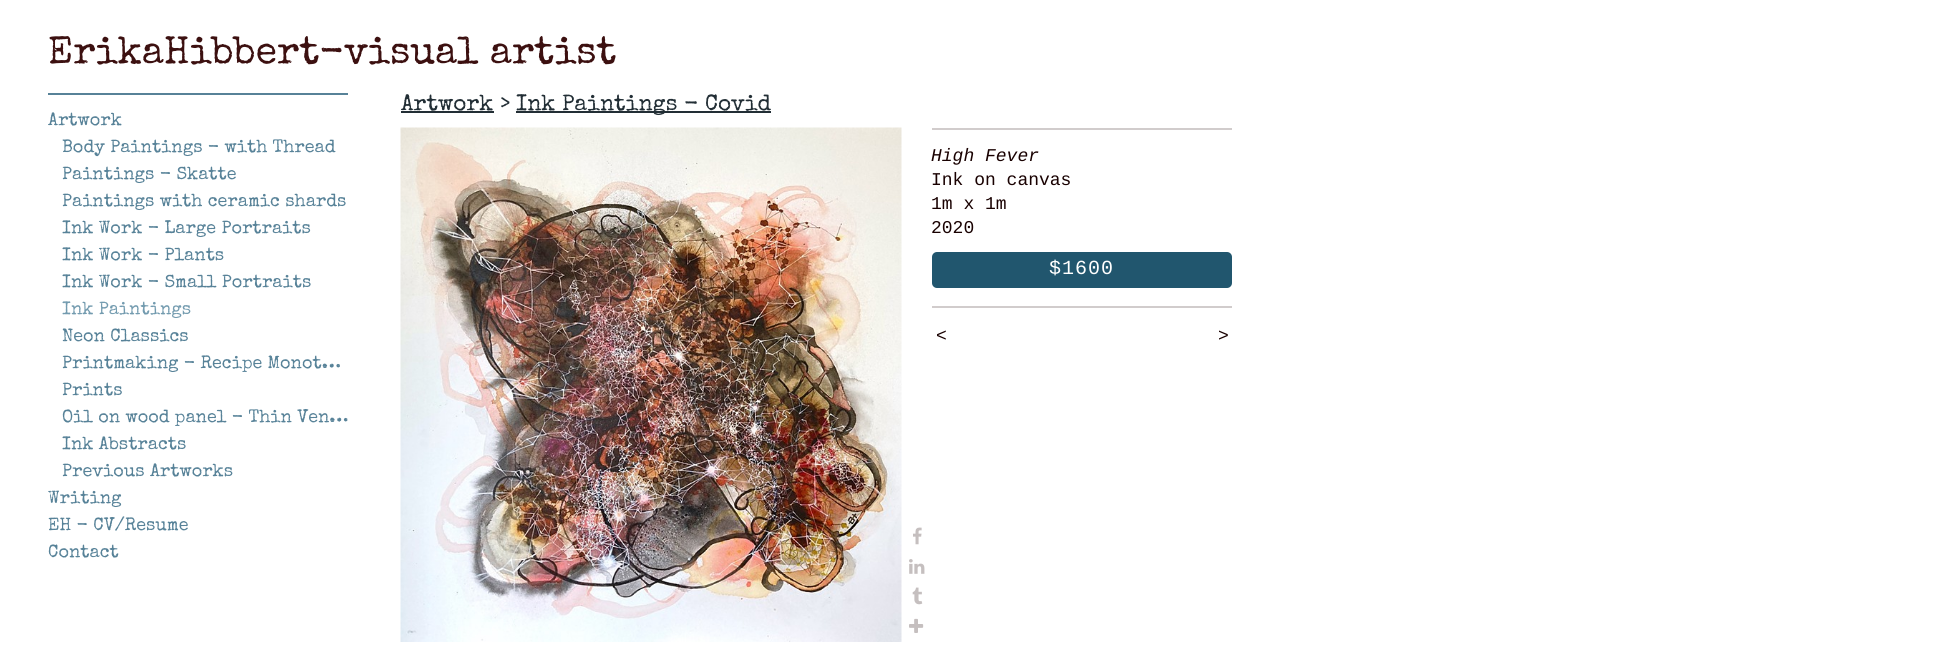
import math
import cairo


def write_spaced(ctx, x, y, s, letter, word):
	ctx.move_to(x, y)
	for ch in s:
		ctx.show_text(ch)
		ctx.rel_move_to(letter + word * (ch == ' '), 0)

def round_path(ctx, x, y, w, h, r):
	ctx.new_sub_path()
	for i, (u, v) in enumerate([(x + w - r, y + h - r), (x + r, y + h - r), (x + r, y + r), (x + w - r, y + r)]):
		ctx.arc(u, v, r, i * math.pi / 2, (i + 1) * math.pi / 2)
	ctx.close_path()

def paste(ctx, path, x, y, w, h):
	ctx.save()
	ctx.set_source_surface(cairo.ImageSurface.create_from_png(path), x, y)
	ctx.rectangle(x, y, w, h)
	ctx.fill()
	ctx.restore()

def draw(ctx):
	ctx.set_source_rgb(1, 1, 1)
	ctx.paint()
	ctx.select_font_face('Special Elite')
	ctx.set_font_size(39)
	ctx.set_source_rgb(0.235, 0.063, 0.063)
	ctx.move_to(48, 63)
	ctx.show_text('ErikaHibbert-visual artist')
	ctx.set_source_rgb(0.341, 0.51, 0.596)
	ctx.rectangle(48, 93, 300, 2)
	ctx.fill()
	ctx.set_font_size(18)
	for x, y, s in [
		(48, 125, 'Artwork'),
		(62, 152, 'Body Paintings - with Thread'),
		(62, 179, 'Paintings - Skatte'),
		(62, 206, 'Paintings with ceramic shards'),
		(62, 233, 'Ink Work - Large Portraits'),
		(62, 260, 'Ink Work - Plants'),
		(62, 287, 'Ink Work - Small Portraits'),
	]:
		ctx.move_to(x, y)
		ctx.show_text(s)
	ctx.set_source_rgb(0.451, 0.608, 0.686)
	ctx.move_to(62, 314)
	ctx.show_text('Ink Paintings')
	ctx.set_source_rgb(0.341, 0.51, 0.596)
	for x, y, s in [
		(62, 341, 'Neon Classics'),
		(62, 368, 'Printmaking - Recipe Monot…'),
		(62, 395, 'Prints'),
		(62, 422, 'Oil on wood panel - Thin Ven…'),
		(62, 449, 'Ink Abstracts'),
		(62, 476, 'Previous Artworks'),
		(48, 503, 'Writing'),
		(48, 530, 'EH - CV/Resume'),
		(48, 557, 'Contact'),
	]:
		ctx.move_to(x, y)
		ctx.show_text(s)
	ctx.set_font_size(22.5)
	ctx.set_source_rgb(0.133, 0.18, 0.208)
	ctx.move_to(401, 110)
	ctx.show_text('Artwork >')
	ctx.rectangle(401, 111, 93, 2)
	ctx.fill()
	ctx.rectangle(516, 111, 255, 2)
	ctx.fill()
	ctx.move_to(516, 110)
	ctx.show_text('Ink Paintings - Covid')
	paste(ctx, 'media/1.png', 400, 127, 502, 515)
	paste(ctx, 'media/2.png', 913, 527, 9, 18)
	paste(ctx, 'media/3.png', 909, 559, 16, 15)
	paste(ctx, 'media/4.png', 912, 587, 11, 18)
	paste(ctx, 'media/5.png', 909, 618, 15, 15)
	ctx.set_source_rgb(0.82, 0.8, 0.8)
	ctx.rectangle(932, 128, 300, 2)
	ctx.fill()
	ctx.select_font_face('Liberation Mono', cairo.FONT_SLANT_ITALIC)
	ctx.set_font_size(18)
	ctx.set_source_rgb(0.098, 0.004, 0.004)
	ctx.move_to(931, 161)
	ctx.show_text('High Fever')
	ctx.select_font_face('Liberation Mono')
	for x, y, s in [
		(931, 185, 'Ink on canvas'),
		(931, 209, '1m x 1m'),
		(931, 233, '2020'),
	]:
		ctx.move_to(x, y)
		ctx.show_text(s)
	ctx.set_source_rgb(0.129, 0.337, 0.431)
	round_path(ctx, 932, 252, 300, 36, 5)
	ctx.fill()
	ctx.set_font_size(20)
	ctx.set_source_rgb(1, 1, 1)
	write_spaced(ctx, 1049, 274, '$1600', 1, 0)
	ctx.set_source_rgb(0.82, 0.8, 0.8)
	ctx.rectangle(932, 306, 300, 2)
	ctx.fill()
	ctx.select_font_face('Liberation Mono', cairo.FONT_SLANT_ITALIC)
	ctx.set_font_size(18)
	ctx.set_source_rgb(0.098, 0.004, 0.004)
	write_spaced(ctx, 936, 341, '<', 2, 0)
	write_spaced(ctx, 1218, 341, '>', 2, 0)


surface = cairo.ImageSurface(cairo.FORMAT_RGB24, 1938, 660)
ctx = cairo.Context(surface)
options = cairo.FontOptions()
options.set_hint_metrics(cairo.HINT_METRICS_OFF)
options.set_hint_style(cairo.HINT_STYLE_NONE)
ctx.set_font_options(options)
ctx.set_miter_limit(4)
draw(ctx)
surface.write_to_png('image.png')
